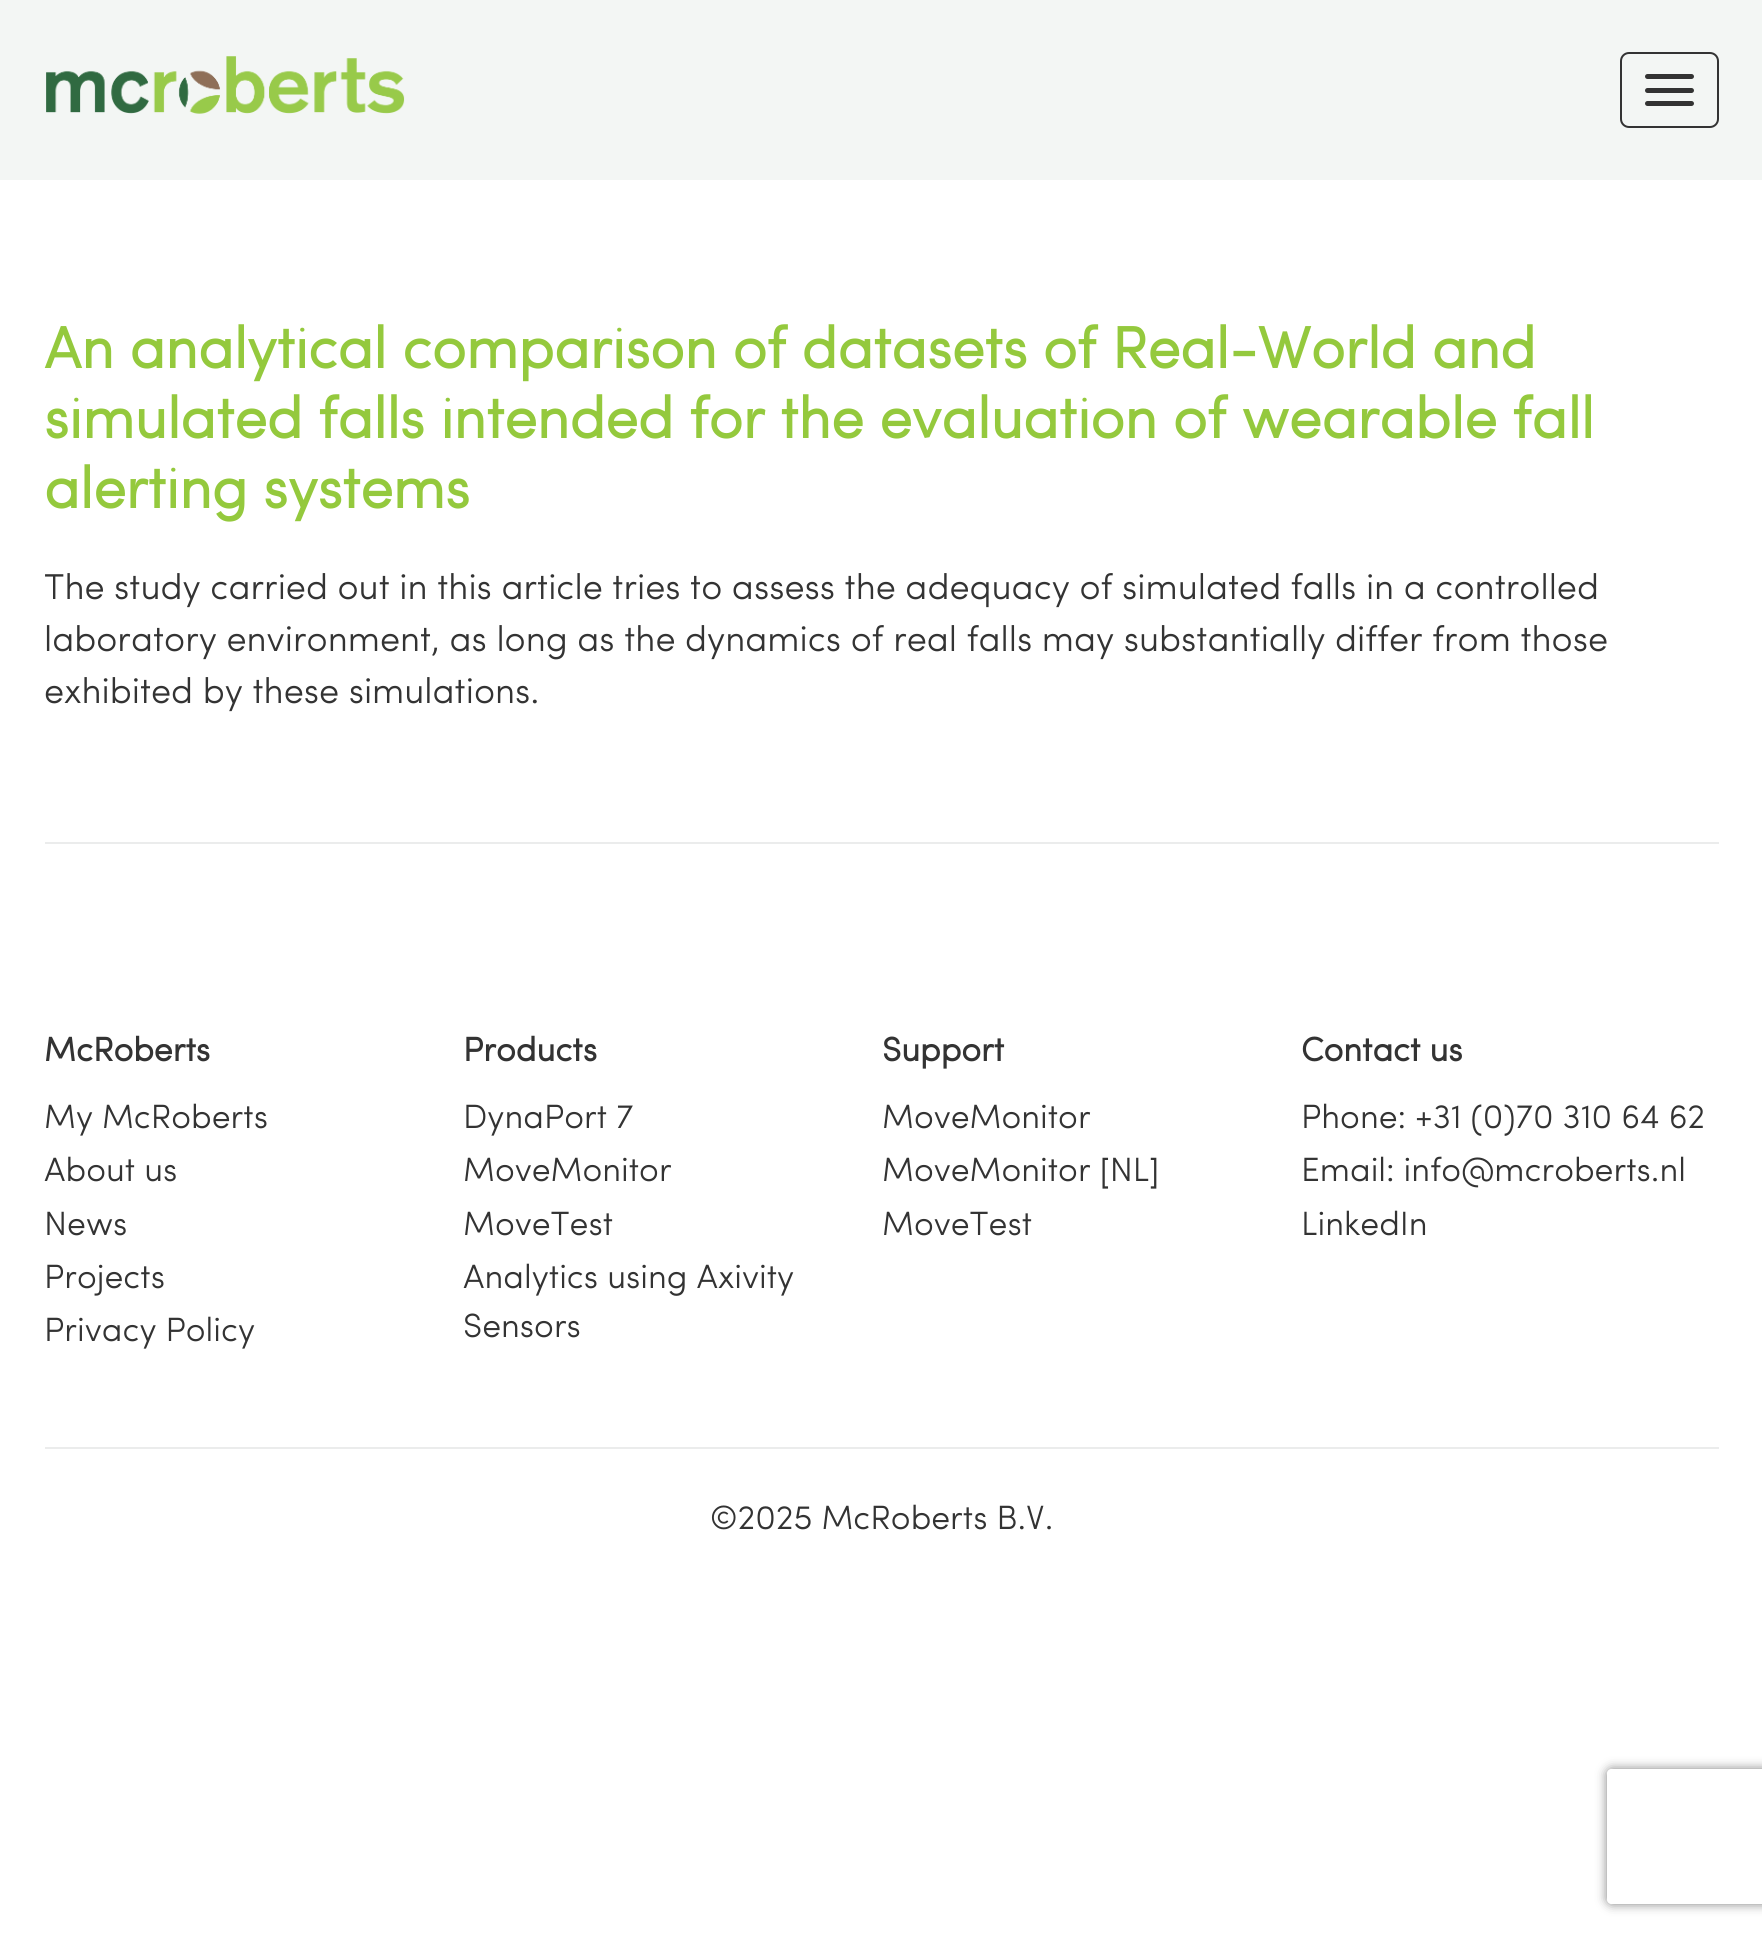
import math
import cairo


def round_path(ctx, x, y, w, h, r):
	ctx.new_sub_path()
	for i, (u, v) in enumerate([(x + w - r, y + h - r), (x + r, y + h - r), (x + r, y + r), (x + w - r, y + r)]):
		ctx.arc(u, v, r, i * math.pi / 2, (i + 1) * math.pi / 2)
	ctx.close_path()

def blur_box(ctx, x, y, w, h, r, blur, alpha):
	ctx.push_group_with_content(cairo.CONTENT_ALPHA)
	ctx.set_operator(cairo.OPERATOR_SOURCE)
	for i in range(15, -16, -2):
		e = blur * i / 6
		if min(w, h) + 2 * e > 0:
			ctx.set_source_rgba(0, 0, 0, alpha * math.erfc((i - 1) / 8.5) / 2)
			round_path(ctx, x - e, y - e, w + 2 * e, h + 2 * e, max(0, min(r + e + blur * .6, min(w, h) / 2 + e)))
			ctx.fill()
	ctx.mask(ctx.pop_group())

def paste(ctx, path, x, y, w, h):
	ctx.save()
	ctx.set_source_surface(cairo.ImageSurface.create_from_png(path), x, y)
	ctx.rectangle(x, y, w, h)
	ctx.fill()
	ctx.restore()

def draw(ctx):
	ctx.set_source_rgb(1, 1, 1)
	ctx.paint()
	ctx.set_source_rgb(0.953, 0.961, 0.957)
	ctx.rectangle(0, 0, 1762, 180)
	ctx.fill()
	paste(ctx, 'media/1.png', 46, 56, 359, 58)
	round_path(ctx, 1621, 53, 97, 74, 8)
	ctx.set_source_rgb(0.2, 0.2, 0.2)
	ctx.stroke()
	round_path(ctx, 1645, 74, 49, 5, 2.5)
	ctx.fill()
	round_path(ctx, 1645, 88, 49, 5, 2.5)
	ctx.fill()
	round_path(ctx, 1645, 101, 49, 5, 2.5)
	ctx.fill()
	ctx.set_source_rgb(0.918, 0.922, 0.925)
	ctx.rectangle(45, 842, 1674, 2)
	ctx.fill()
	ctx.select_font_face('Sofia', cairo.FONT_SLANT_NORMAL, cairo.FONT_WEIGHT_BOLD)
	ctx.set_font_size(58.5)
	ctx.set_source_rgb(0.58, 0.788, 0.239)
	for x, y, s in [
		(44, 368, 'An analytical comparison of datasets of Real-World and'),
		(44, 438, 'simulated falls intended for the evaluation of wearable fall'),
		(44, 508, 'alerting systems'),
	]:
		ctx.move_to(x, y)
		ctx.show_text(s)
	ctx.select_font_face('Sofia')
	ctx.set_font_size(36)
	ctx.set_source_rgb(0.2, 0.2, 0.2)
	for x, y, s in [
		(44, 599, 'The study carried out in this article tries to assess the adequacy of simulated falls in a controlled'),
		(44, 651, 'laboratory environment, as long as the dynamics of real falls may substantially differ from those'),
		(44, 703, 'exhibited by these simulations.'),
	]:
		ctx.move_to(x, y)
		ctx.show_text(s)
	ctx.select_font_face('Sofia', cairo.FONT_SLANT_NORMAL, cairo.FONT_WEIGHT_BOLD)
	ctx.set_font_size(33.75)
	ctx.move_to(44, 1061)
	ctx.show_text('McRoberts')
	ctx.select_font_face('Sofia')
	for x, y, s in [
		(44, 1128, 'My McRoberts'),
		(44, 1181, 'About us'),
		(44, 1235, 'News'),
		(44, 1288, 'Projects'),
		(44, 1341, 'Privacy Policy'),
	]:
		ctx.move_to(x, y)
		ctx.show_text(s)
	ctx.select_font_face('Sofia', cairo.FONT_SLANT_NORMAL, cairo.FONT_WEIGHT_BOLD)
	ctx.move_to(463, 1061)
	ctx.show_text('Products')
	ctx.select_font_face('Sofia')
	for x, y, s in [
		(463, 1128, 'DynaPort 7'),
		(463, 1181, 'MoveMonitor'),
		(463, 1235, 'MoveTest'),
		(463, 1288, 'Analytics using Axivity'),
		(463, 1337, 'Sensors'),
	]:
		ctx.move_to(x, y)
		ctx.show_text(s)
	ctx.select_font_face('Sofia', cairo.FONT_SLANT_NORMAL, cairo.FONT_WEIGHT_BOLD)
	ctx.move_to(882, 1061)
	ctx.show_text('Support')
	ctx.select_font_face('Sofia')
	for x, y, s in [
		(882, 1128, 'MoveMonitor'),
		(882, 1181, 'MoveMonitor [NL]'),
		(882, 1235, 'MoveTest'),
	]:
		ctx.move_to(x, y)
		ctx.show_text(s)
	ctx.select_font_face('Sofia', cairo.FONT_SLANT_NORMAL, cairo.FONT_WEIGHT_BOLD)
	ctx.move_to(1301, 1061)
	ctx.show_text('Contact us')
	ctx.select_font_face('Sofia')
	for x, y, s in [
		(1301, 1128, 'Phone: +31 (0)70 310 64 62'),
		(1301, 1181, 'Email: info@mcroberts.nl'),
		(1301, 1235, 'LinkedIn'),
	]:
		ctx.move_to(x, y)
		ctx.show_text(s)
	ctx.set_source_rgb(0.918, 0.922, 0.925)
	ctx.rectangle(45, 1447, 1674, 2)
	ctx.fill()
	ctx.set_source_rgb(0.2, 0.2, 0.2)
	ctx.move_to(710, 1529)
	ctx.show_text('©2025 McRoberts B.V.')
	ctx.save()
	ctx.set_fill_rule(cairo.FILL_RULE_EVEN_ODD)
	ctx.new_path()
	ctx.move_to(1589, 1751)
	ctx.line_to(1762, 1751)
	ctx.line_to(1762, 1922)
	ctx.line_to(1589, 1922)
	ctx.close_path()
	ctx.move_to(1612, 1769)
	ctx.line_to(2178, 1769)
	ctx.curve_to(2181, 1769, 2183, 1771, 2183, 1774)
	ctx.line_to(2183, 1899)
	ctx.curve_to(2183, 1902, 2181, 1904, 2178, 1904)
	ctx.line_to(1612, 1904)
	ctx.curve_to(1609, 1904, 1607, 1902, 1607, 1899)
	ctx.line_to(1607, 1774)
	ctx.curve_to(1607, 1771, 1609, 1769, 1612, 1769)
	ctx.close_path()
	ctx.clip()
	ctx.set_source_rgb(0.502, 0.502, 0.502)
	blur_box(ctx, 1607, 1769, 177, 135, 5, 5.5, 1)
	ctx.restore()


surface = cairo.ImageSurface(cairo.FORMAT_RGB24, 1762, 1935)
ctx = cairo.Context(surface)
options = cairo.FontOptions()
options.set_hint_metrics(cairo.HINT_METRICS_OFF)
options.set_hint_style(cairo.HINT_STYLE_NONE)
ctx.set_font_options(options)
ctx.set_miter_limit(4)
draw(ctx)
surface.write_to_png('image.png')
